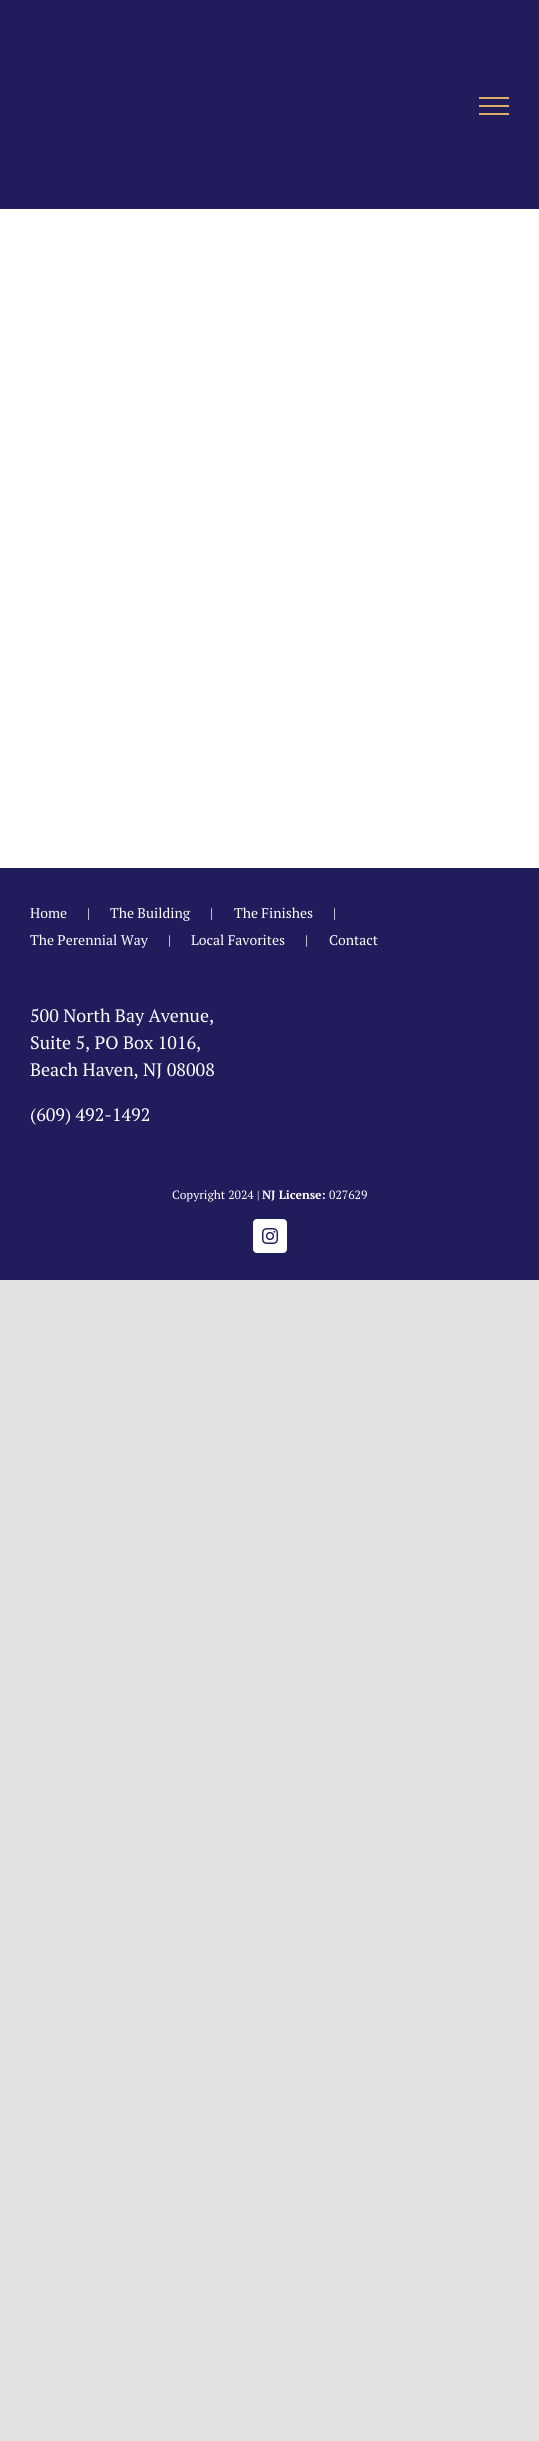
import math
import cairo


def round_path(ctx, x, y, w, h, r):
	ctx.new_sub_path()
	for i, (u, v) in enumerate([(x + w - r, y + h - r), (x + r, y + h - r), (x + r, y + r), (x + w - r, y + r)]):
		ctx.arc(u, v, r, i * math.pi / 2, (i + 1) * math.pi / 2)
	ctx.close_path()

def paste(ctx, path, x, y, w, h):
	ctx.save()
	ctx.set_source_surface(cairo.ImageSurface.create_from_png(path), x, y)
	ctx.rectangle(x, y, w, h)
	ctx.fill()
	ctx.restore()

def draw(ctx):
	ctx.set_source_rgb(0.886, 0.886, 0.886)
	ctx.paint()
	ctx.set_source_rgb(1, 1, 1)
	ctx.rectangle(0, 209, 539, 659)
	ctx.fill()
	ctx.set_source_rgb(0.129, 0.11, 0.357)
	ctx.rectangle(0, 0, 539, 209)
	ctx.fill()
	ctx.set_source_rgb(0.871, 0.678, 0.404)
	ctx.rectangle(479, 97, 30, 2)
	ctx.rectangle(479, 105, 30, 2)
	ctx.rectangle(479, 113, 30, 2)
	ctx.fill()
	ctx.set_source_rgb(0.129, 0.11, 0.357)
	ctx.rectangle(0, 868, 539, 412)
	ctx.fill()
	ctx.select_font_face('PT Serif')
	ctx.set_font_size(14)
	ctx.set_source_rgb(1, 1, 1)
	for x, y, s in [
		(30, 918, 'Home'),
		(87, 918, '|'),
		(110, 918, 'The Building'),
		(210, 918, '|'),
		(234, 918, 'The Finishes'),
		(333, 918, '|'),
		(30, 945, 'The Perennial Way'),
		(168, 945, '|'),
		(191, 945, 'Local Favorites'),
		(305, 945, '|'),
		(329, 945, 'Contact'),
	]:
		ctx.move_to(x, y)
		ctx.show_text(s)
	ctx.set_font_size(18)
	for x, y, s in [
		(30, 1022, '500 North Bay Avenue,'),
		(30, 1049, 'Suite 5, PO Box 1016,'),
		(30, 1076, 'Beach Haven, NJ 08008'),
		(30, 1121, '(609) 492-1492'),
	]:
		ctx.move_to(x, y)
		ctx.show_text(s)
	ctx.set_font_size(12)
	ctx.move_to(172, 1199)
	ctx.show_text('Copyright 2024 |')
	ctx.select_font_face('PT Serif', cairo.FONT_SLANT_NORMAL, cairo.FONT_WEIGHT_BOLD)
	ctx.move_to(262, 1199)
	ctx.show_text('NJ License:')
	ctx.select_font_face('PT Serif')
	ctx.move_to(329, 1199)
	ctx.show_text('027629')
	round_path(ctx, 253.5, 1219.5, 33, 33, 3.5)
	ctx.fill_preserve()
	ctx.set_line_width(1)
	ctx.stroke()
	paste(ctx, 'media/1.png', 262, 1228, 16, 16)


surface = cairo.ImageSurface(cairo.FORMAT_RGB24, 539, 2441)
ctx = cairo.Context(surface)
options = cairo.FontOptions()
options.set_hint_metrics(cairo.HINT_METRICS_OFF)
options.set_hint_style(cairo.HINT_STYLE_NONE)
ctx.set_font_options(options)
ctx.set_miter_limit(4)
draw(ctx)
surface.write_to_png('image.png')
